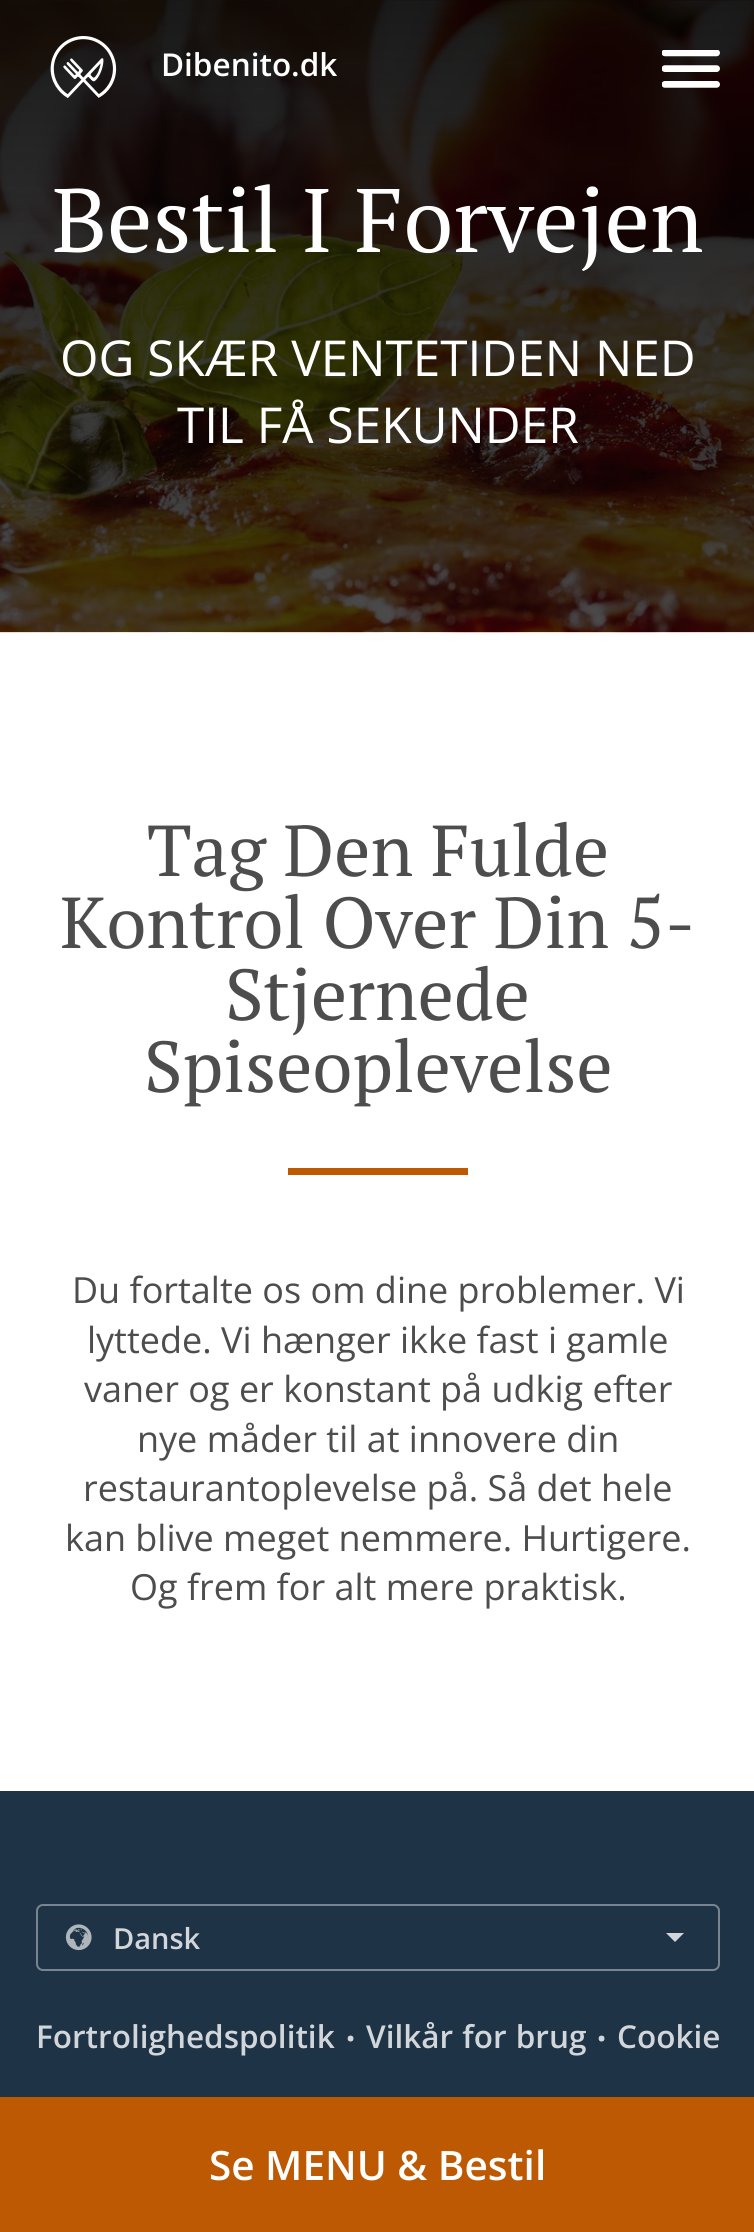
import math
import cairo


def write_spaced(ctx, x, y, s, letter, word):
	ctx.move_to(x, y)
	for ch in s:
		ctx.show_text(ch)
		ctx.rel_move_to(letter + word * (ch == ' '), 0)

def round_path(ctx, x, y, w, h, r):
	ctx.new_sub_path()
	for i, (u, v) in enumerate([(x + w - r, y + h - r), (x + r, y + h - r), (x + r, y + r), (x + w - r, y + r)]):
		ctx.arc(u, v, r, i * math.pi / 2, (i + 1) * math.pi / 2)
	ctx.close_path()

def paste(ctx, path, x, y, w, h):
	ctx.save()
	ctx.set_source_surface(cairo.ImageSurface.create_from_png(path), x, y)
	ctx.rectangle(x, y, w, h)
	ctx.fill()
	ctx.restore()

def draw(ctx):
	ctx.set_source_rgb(1, 1, 1)
	ctx.paint()
	paste(ctx, 'media/3.png', 0, 0, 754, 633)
	paste(ctx, 'media/1.png', 50, 36, 67, 62)
	ctx.select_font_face('Open Sans SemiBold')
	ctx.set_font_size(31.5)
	ctx.set_source_rgb(1, 1, 1)
	ctx.move_to(161, 76)
	ctx.show_text('Dibenito.dk')
	paste(ctx, 'media/2.png', 662, 50, 58, 38)
	ctx.select_font_face('PT Serif')
	ctx.set_font_size(90)
	ctx.move_to(52, 252)
	ctx.show_text('Bestil I Forvejen')
	ctx.select_font_face('Open Sans')
	ctx.set_font_size(49.5)
	ctx.move_to(60, 376)
	ctx.show_text('OG SKÆR VENTETIDEN NED')
	ctx.move_to(177, 443)
	ctx.show_text('TIL FÅ SEKUNDER')
	ctx.select_font_face('PT Serif')
	ctx.set_font_size(72)
	ctx.set_source_rgb(0.302, 0.302, 0.302)
	for x, y, s in [
		(147, 876, 'Tag Den Fulde'),
		(60, 948, 'Kontrol Over Din 5-'),
		(225, 1020, 'Stjernede'),
		(144, 1092, 'Spiseoplevelse'),
	]:
		ctx.move_to(x, y)
		ctx.show_text(s)
	ctx.set_source_rgb(0.741, 0.349, 0.008)
	ctx.rectangle(288, 1168, 180, 7)
	ctx.fill()
	ctx.select_font_face('Open Sans')
	ctx.set_font_size(36)
	ctx.set_source_rgb(0.302, 0.302, 0.302)
	for x, y, s in [
		(72, 1303, 'Du fortalte os om dine problemer. Vi'),
		(87, 1353, 'lyttede. Vi hænger ikke fast i gamle'),
		(84, 1402, 'vaner og er konstant på udkig efter'),
		(137, 1452, 'nye måder til at innovere din'),
		(83, 1501, 'restaurantoplevelse på. Så det hele'),
		(65, 1551, 'kan blive meget nemmere. Hurtigere.'),
		(130, 1600, 'Og frem for alt mere praktisk.'),
	]:
		ctx.move_to(x, y)
		ctx.show_text(s)
	ctx.set_source_rgb(0.118, 0.204, 0.275)
	ctx.rectangle(0, 1791, 754, 306)
	ctx.fill()
	paste(ctx, 'media/4.png', 65, 1924, 27, 27)
	round_path(ctx, 37, 1905, 682, 65, 6)
	ctx.set_source_rgb(0.471, 0.522, 0.565)
	ctx.stroke()
	ctx.select_font_face('Open Sans SemiBold')
	ctx.set_font_size(29)
	ctx.set_source_rgb(0.824, 0.839, 0.855)
	ctx.move_to(113, 1949)
	ctx.show_text('Dansk')
	ctx.new_path()
	ctx.move_to(666, 1933)
	ctx.line_to(684, 1933)
	ctx.line_to(675, 1942)
	ctx.close_path()
	ctx.fill()
	ctx.set_font_size(31.5)
	ctx.move_to(36, 2048)
	ctx.show_text('Fortrolighedspolitik')
	ctx.set_font_size(40.5)
	ctx.move_to(345, 2041)
	ctx.show_text('.')
	ctx.set_font_size(31.5)
	write_spaced(ctx, 366, 2048, 'Vilkår for brug', 0, 1)
	ctx.set_font_size(40.5)
	ctx.move_to(596, 2041)
	ctx.show_text('.')
	ctx.set_font_size(31.5)
	ctx.move_to(617, 2048)
	ctx.show_text('Cookie')
	ctx.set_source_rgb(0.741, 0.349, 0.008)
	ctx.rectangle(0, 2097, 754, 135)
	ctx.fill()
	ctx.set_font_size(40.5)
	ctx.set_source_rgb(1, 1, 1)
	ctx.move_to(209, 2180)
	ctx.show_text('Se MENU & Bestil')


surface = cairo.ImageSurface(cairo.FORMAT_RGB24, 754, 2232)
ctx = cairo.Context(surface)
options = cairo.FontOptions()
options.set_hint_metrics(cairo.HINT_METRICS_OFF)
options.set_hint_style(cairo.HINT_STYLE_NONE)
ctx.set_font_options(options)
ctx.set_miter_limit(4)
draw(ctx)
surface.write_to_png('image.png')
